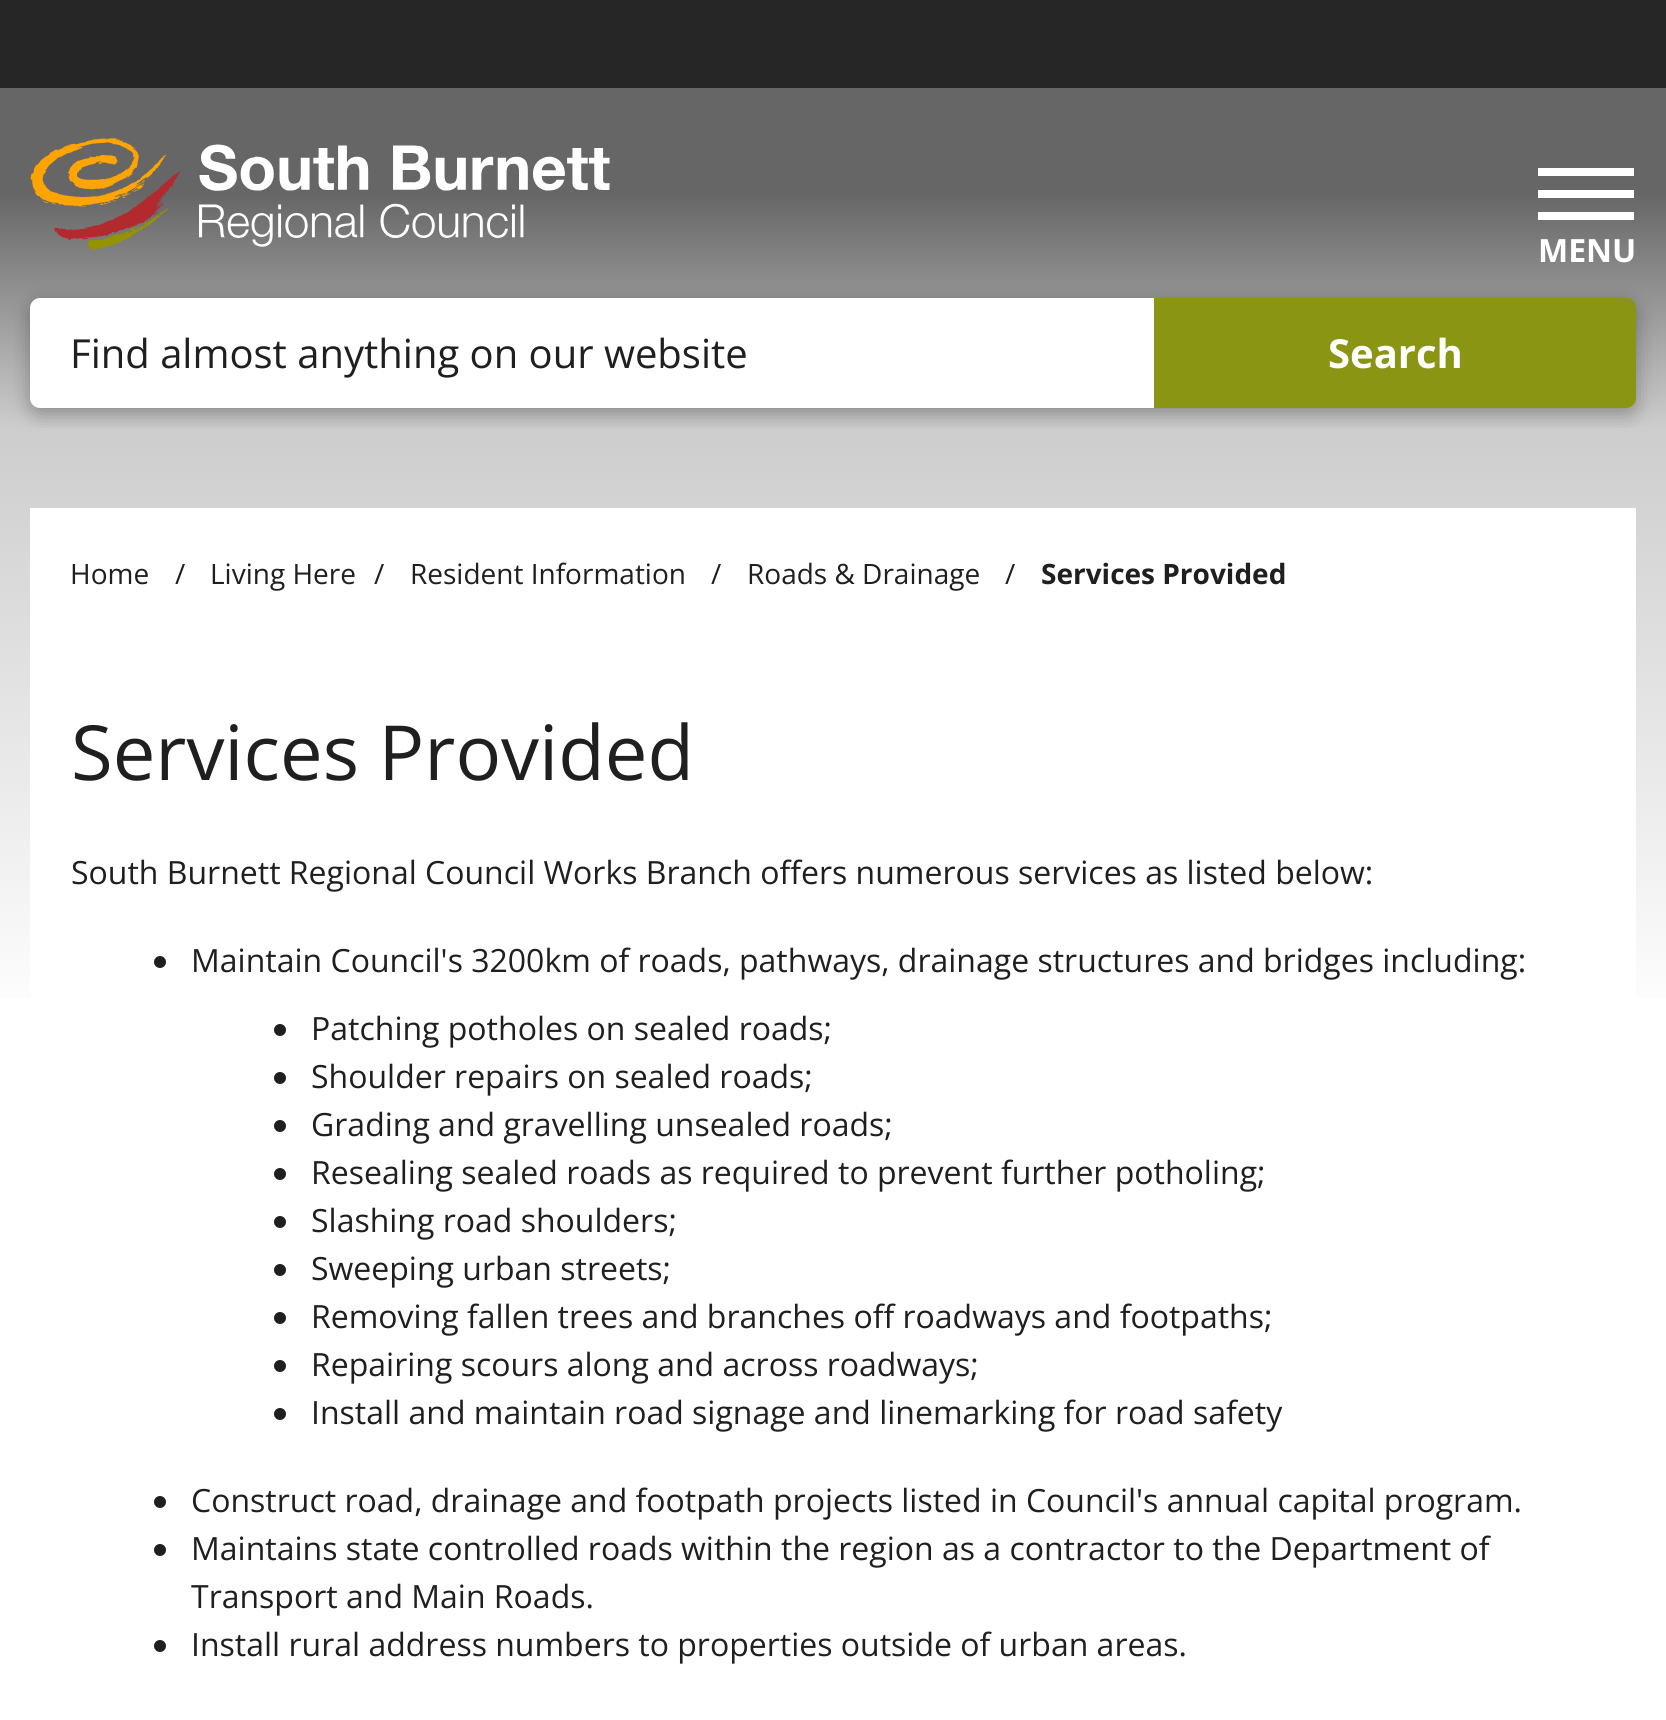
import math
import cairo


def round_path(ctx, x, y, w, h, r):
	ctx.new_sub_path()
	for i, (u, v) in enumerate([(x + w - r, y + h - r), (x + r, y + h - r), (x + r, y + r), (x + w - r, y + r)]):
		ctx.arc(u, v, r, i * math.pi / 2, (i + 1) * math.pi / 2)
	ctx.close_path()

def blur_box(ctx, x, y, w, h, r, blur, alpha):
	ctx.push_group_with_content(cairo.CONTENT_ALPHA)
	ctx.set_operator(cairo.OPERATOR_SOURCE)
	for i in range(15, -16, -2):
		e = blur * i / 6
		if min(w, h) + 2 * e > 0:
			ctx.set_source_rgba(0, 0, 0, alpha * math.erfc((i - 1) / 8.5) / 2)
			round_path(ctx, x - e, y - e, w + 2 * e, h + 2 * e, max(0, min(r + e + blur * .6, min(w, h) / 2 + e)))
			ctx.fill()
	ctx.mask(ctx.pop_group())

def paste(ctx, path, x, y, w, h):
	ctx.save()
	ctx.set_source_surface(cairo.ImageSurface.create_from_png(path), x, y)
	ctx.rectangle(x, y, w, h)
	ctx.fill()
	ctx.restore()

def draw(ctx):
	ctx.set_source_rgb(1, 1, 1)
	ctx.paint()
	ctx.set_source_rgb(0.149, 0.149, 0.149)
	ctx.rectangle(0, 0, 1666, 88)
	ctx.fill()
	gradient = cairo.LinearGradient(833, 88, 833, 428)
	gradient.add_color_stop_rgba(0, 0.4, 0.4, 0.4, 1)
	gradient.add_color_stop_rgba(0.31, 0.4, 0.4, 0.4, 1)
	gradient.add_color_stop_rgba(1, 0.804, 0.804, 0.804, 1)
	ctx.set_source(gradient)
	ctx.rectangle(0, 88, 1666, 340)
	ctx.fill()
	paste(ctx, 'media/1.png', 30, 138, 580, 112)
	ctx.set_source_rgb(1, 1, 1)
	ctx.rectangle(1538, 190, 96, 8)
	ctx.rectangle(1538, 168, 96, 8)
	ctx.rectangle(1538, 212, 96, 8)
	ctx.fill()
	ctx.select_font_face('Open Sans', cairo.FONT_SLANT_NORMAL, cairo.FONT_WEIGHT_BOLD)
	ctx.set_font_size(32)
	ctx.move_to(1538, 262)
	ctx.show_text('MENU')
	ctx.set_source_rgb(0, 0, 0)
	blur_box(ctx, 30, 304, 1606, 110, 10, 10, 0.3)
	ctx.set_source_rgb(1, 1, 1)
	ctx.new_path()
	ctx.move_to(40, 298)
	ctx.line_to(1154, 298)
	ctx.line_to(1154, 408)
	ctx.line_to(40, 408)
	ctx.curve_to(34.5, 408, 30, 403.5, 30, 398)
	ctx.line_to(30, 308)
	ctx.curve_to(30, 302.5, 34.5, 298, 40, 298)
	ctx.close_path()
	ctx.fill()
	ctx.select_font_face('Open Sans')
	ctx.set_font_size(40)
	ctx.set_source_rgb(0.122, 0.122, 0.122)
	ctx.move_to(70, 368)
	ctx.show_text('Find almost anything on our website')
	ctx.set_source_rgb(0.541, 0.584, 0.082)
	ctx.new_path()
	ctx.move_to(1154, 298)
	ctx.line_to(1626, 298)
	ctx.curve_to(1631.5, 298, 1636, 302.5, 1636, 308)
	ctx.line_to(1636, 398)
	ctx.curve_to(1636, 403.5, 1631.5, 408, 1626, 408)
	ctx.line_to(1154, 408)
	ctx.close_path()
	ctx.fill()
	ctx.select_font_face('Open Sans', cairo.FONT_SLANT_NORMAL, cairo.FONT_WEIGHT_BOLD)
	ctx.set_source_rgb(1, 1, 1)
	ctx.move_to(1328, 368)
	ctx.show_text('Search')
	gradient = cairo.LinearGradient(833, 428, 833, 1028)
	gradient.add_color_stop_rgba(0, 0.804, 0.804, 0.804, 1)
	gradient.add_color_stop_rgba(1, 1, 1, 1, 1)
	ctx.set_source(gradient)
	ctx.rectangle(0, 428, 1666, 570)
	ctx.fill()
	ctx.set_source_rgb(1, 1, 1)
	ctx.rectangle(30, 508, 1606, 490)
	ctx.fill()
	ctx.select_font_face('Open Sans')
	ctx.set_font_size(28)
	ctx.set_source_rgb(0.122, 0.122, 0.122)
	for x, y, s in [
		(70, 584, 'Home'),
		(175, 584, '/'),
		(210, 584, 'Living Here'),
		(374, 584, '/'),
		(410, 584, 'Resident Information'),
		(711, 584, '/'),
		(747, 584, 'Roads & Drainage'),
		(1005, 584, '/'),
	]:
		ctx.move_to(x, y)
		ctx.show_text(s)
	ctx.select_font_face('Open Sans', cairo.FONT_SLANT_NORMAL, cairo.FONT_WEIGHT_BOLD)
	ctx.move_to(1041, 584)
	ctx.show_text('Services Provided')
	ctx.select_font_face('Open Sans')
	ctx.set_font_size(76)
	ctx.move_to(71, 780)
	ctx.show_text('Services Provided')
	ctx.set_font_size(32)
	ctx.move_to(71, 884)
	ctx.show_text('South Burnett Regional Council Works Branch offers numerous services as listed below:')
	ctx.new_path()
	ctx.arc(160, 962, 6, 0, 2 * math.pi)
	ctx.fill()
	ctx.move_to(191, 972)
	ctx.show_text('Maintain Council\'s 3200km of roads, pathways, drainage structures and bridges including:')
	ctx.new_path()
	ctx.arc(280, 1030, 6, 0, 2 * math.pi)
	ctx.fill()
	ctx.move_to(311, 1040)
	ctx.show_text('Patching potholes on sealed roads;')
	ctx.new_path()
	ctx.arc(280, 1078, 6, 0, 2 * math.pi)
	ctx.fill()
	ctx.move_to(311, 1088)
	ctx.show_text('Shoulder repairs on sealed roads;')
	ctx.new_path()
	ctx.arc(280, 1126, 6, 0, 2 * math.pi)
	ctx.fill()
	ctx.move_to(311, 1136)
	ctx.show_text('Grading and gravelling unsealed roads;')
	ctx.new_path()
	ctx.arc(280, 1174, 6, 0, 2 * math.pi)
	ctx.fill()
	ctx.move_to(311, 1184)
	ctx.show_text('Resealing sealed roads as required to prevent further potholing;')
	ctx.new_path()
	ctx.arc(280, 1222, 6, 0, 2 * math.pi)
	ctx.fill()
	ctx.move_to(311, 1232)
	ctx.show_text('Slashing road shoulders;')
	ctx.new_path()
	ctx.arc(280, 1270, 6, 0, 2 * math.pi)
	ctx.fill()
	ctx.move_to(311, 1280)
	ctx.show_text('Sweeping urban streets;')
	ctx.new_path()
	ctx.arc(280, 1318, 6, 0, 2 * math.pi)
	ctx.fill()
	ctx.move_to(311, 1328)
	ctx.show_text('Removing fallen trees and branches off roadways and footpaths;')
	ctx.new_path()
	ctx.arc(280, 1366, 6, 0, 2 * math.pi)
	ctx.fill()
	ctx.move_to(311, 1376)
	ctx.show_text('Repairing scours along and across roadways;')
	ctx.new_path()
	ctx.arc(280, 1414, 6, 0, 2 * math.pi)
	ctx.fill()
	ctx.move_to(311, 1424)
	ctx.show_text('Install and maintain road signage and linemarking for road safety')
	ctx.new_path()
	ctx.arc(160, 1502, 6, 0, 2 * math.pi)
	ctx.fill()
	ctx.move_to(191, 1512)
	ctx.show_text('Construct road, drainage and footpath projects listed in Council\'s annual capital program.')
	ctx.new_path()
	ctx.arc(160, 1550, 6, 0, 2 * math.pi)
	ctx.fill()
	ctx.move_to(191, 1560)
	ctx.show_text('Maintains state controlled roads within the region as a contractor to the Department of')
	ctx.move_to(191, 1608)
	ctx.show_text('Transport and Main Roads.')
	ctx.new_path()
	ctx.arc(160, 1646, 6, 0, 2 * math.pi)
	ctx.fill()
	ctx.move_to(191, 1656)
	ctx.show_text('Install rural address numbers to properties outside of urban areas.')


surface = cairo.ImageSurface(cairo.FORMAT_RGB24, 1666, 1720)
ctx = cairo.Context(surface)
options = cairo.FontOptions()
options.set_hint_metrics(cairo.HINT_METRICS_OFF)
options.set_hint_style(cairo.HINT_STYLE_NONE)
ctx.set_font_options(options)
ctx.set_miter_limit(4)
draw(ctx)
surface.write_to_png('image.png')
